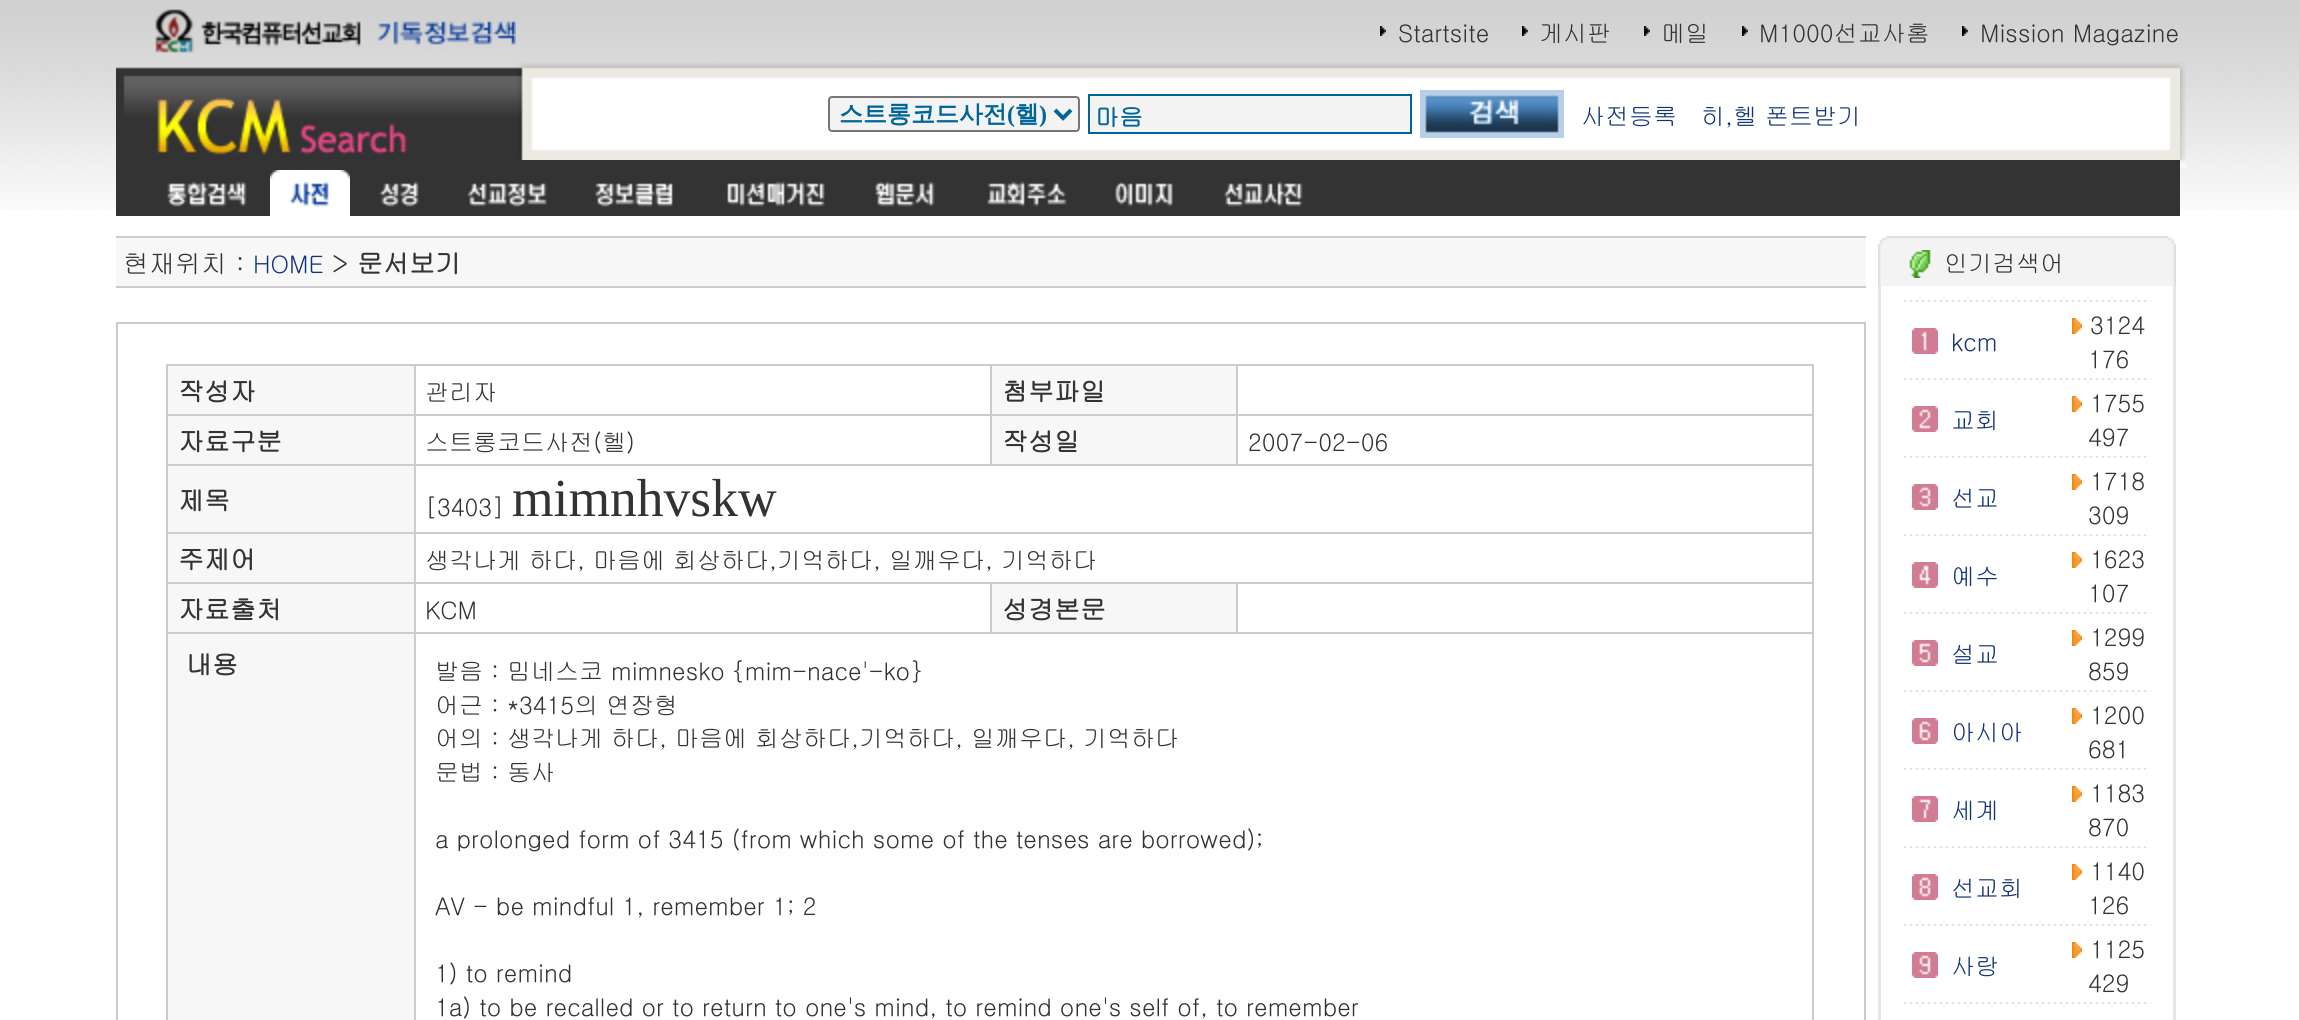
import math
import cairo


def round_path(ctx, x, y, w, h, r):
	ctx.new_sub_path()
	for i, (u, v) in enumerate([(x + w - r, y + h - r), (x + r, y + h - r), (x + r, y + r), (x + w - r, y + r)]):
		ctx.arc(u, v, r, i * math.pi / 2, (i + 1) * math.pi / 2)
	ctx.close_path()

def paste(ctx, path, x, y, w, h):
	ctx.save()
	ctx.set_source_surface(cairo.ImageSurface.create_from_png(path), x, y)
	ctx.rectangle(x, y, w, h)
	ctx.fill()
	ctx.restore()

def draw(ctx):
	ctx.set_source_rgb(1, 1, 1)
	ctx.paint()
	paste(ctx, 'media/1.png', 0, 0, 2299, 210)
	paste(ctx, 'media/2.png', 155, 9, 361, 44)
	paste(ctx, 'media/3.png', 1380, 26, 6, 10)
	ctx.select_font_face('Gulim')
	ctx.set_font_size(24)
	ctx.set_source_rgb(0.2, 0.2, 0.2)
	ctx.move_to(1398, 42)
	ctx.show_text('Startsite')
	paste(ctx, 'media/4.png', 1522, 26, 6, 10)
	ctx.move_to(1539, 42)
	ctx.show_text('게시판')
	paste(ctx, 'media/5.png', 1644, 26, 6, 10)
	ctx.move_to(1661, 42)
	ctx.show_text('메일')
	paste(ctx, 'media/6.png', 1742, 26, 6, 10)
	ctx.move_to(1759, 42)
	ctx.show_text('M1000선교사홈')
	paste(ctx, 'media/7.png', 1962, 26, 6, 10)
	ctx.move_to(1980, 42)
	ctx.show_text('Mission Magazine')
	paste(ctx, 'media/8.png', 116, 67, 400, 93)
	paste(ctx, 'media/9.png', 516, 62, 1670, 98)
	paste(ctx, 'media/10.png', 516, 63, 17, 97)
	ctx.set_source_rgb(0.953, 0.953, 0.953)
	round_path(ctx, 829, 97, 250, 34, 3)
	ctx.fill_preserve()
	ctx.set_source_rgb(0.463, 0.463, 0.463)
	ctx.stroke()
	ctx.new_path()
	ctx.move_to(1055, 110)
	ctx.line_to(1063, 118)
	ctx.line_to(1071, 110)
	ctx.set_source_rgb(0, 0.4, 0.6)
	ctx.set_line_width(4)
	ctx.stroke()
	ctx.select_font_face('WenQuanYi Zen Hei', cairo.FONT_SLANT_NORMAL, cairo.FONT_WEIGHT_BOLD)
	ctx.move_to(839, 122)
	ctx.show_text('스트롱코드사전')
	ctx.select_font_face('Liberation Serif', cairo.FONT_SLANT_NORMAL, cairo.FONT_WEIGHT_BOLD)
	ctx.move_to(1007, 122)
	ctx.show_text('(')
	ctx.select_font_face('WenQuanYi Zen Hei', cairo.FONT_SLANT_NORMAL, cairo.FONT_WEIGHT_BOLD)
	ctx.move_to(1015, 122)
	ctx.show_text('헬')
	ctx.select_font_face('Liberation Serif', cairo.FONT_SLANT_NORMAL, cairo.FONT_WEIGHT_BOLD)
	ctx.move_to(1039, 122)
	ctx.show_text(')')
	ctx.set_source_rgb(0.953, 0.953, 0.953)
	ctx.rectangle(1089, 95, 322, 38)
	ctx.fill_preserve()
	ctx.set_source_rgb(0, 0.4, 0.6)
	ctx.set_line_width(2)
	ctx.stroke()
	ctx.select_font_face('Gulim', cairo.FONT_SLANT_NORMAL, cairo.FONT_WEIGHT_BOLD)
	ctx.move_to(1095, 126)
	ctx.show_text('마음')
	paste(ctx, 'media/11.png', 1420, 90, 144, 48)
	ctx.select_font_face('Gulim')
	ctx.set_source_rgb(0.067, 0.2, 0.467)
	ctx.move_to(1581, 125)
	ctx.show_text('사전등록')
	ctx.move_to(1701, 125)
	ctx.show_text('히,헬 폰트받기')
	paste(ctx, 'media/12.png', 2169, 65, 11, 86)
	paste(ctx, 'media/13.png', 2180, 63, 6, 97)
	ctx.set_source_rgb(0.2, 0.2, 0.2)
	ctx.rectangle(116, 160, 2064, 56)
	ctx.fill()
	ctx.set_source_rgb(0.973, 0.973, 0.973)
	ctx.rectangle(2180, 163, 6, 5)
	ctx.fill()
	paste(ctx, 'media/14.png', 167, 181, 80, 26)
	paste(ctx, 'media/15.png', 270, 170, 80, 46)
	paste(ctx, 'media/16.png', 379, 181, 40, 26)
	paste(ctx, 'media/17.png', 467, 183, 80, 24)
	paste(ctx, 'media/18.png', 595, 183, 78, 24)
	paste(ctx, 'media/19.png', 727, 181, 98, 26)
	paste(ctx, 'media/20.png', 875, 181, 60, 26)
	paste(ctx, 'media/21.png', 987, 181, 80, 26)
	paste(ctx, 'media/22.png', 1115, 181, 58, 26)
	paste(ctx, 'media/23.png', 1223, 181, 80, 26)
	ctx.set_source_rgb(0.8, 0.8, 0.8)
	ctx.rectangle(116, 236, 1750, 2)
	ctx.fill()
	ctx.set_source_rgb(0.965, 0.965, 0.965)
	ctx.rectangle(116, 238, 1750, 48)
	ctx.fill()
	ctx.set_font_size(26)
	ctx.set_source_rgb(0.2, 0.2, 0.2)
	ctx.move_to(123, 273)
	ctx.show_text('현재위치 :')
	ctx.set_font_size(24)
	ctx.set_source_rgb(0.067, 0.2, 0.467)
	ctx.move_to(253, 273)
	ctx.show_text('HOME')
	ctx.set_font_size(26)
	ctx.set_source_rgb(0.2, 0.2, 0.2)
	ctx.move_to(332, 273)
	ctx.show_text('>')
	ctx.select_font_face('Gulim', cairo.FONT_SLANT_NORMAL, cairo.FONT_WEIGHT_BOLD)
	ctx.move_to(357, 273)
	ctx.show_text('문서보기')
	ctx.set_source_rgb(0.8, 0.8, 0.8)
	ctx.rectangle(116, 286, 1750, 2)
	ctx.fill()
	ctx.rectangle(117, 323, 1748, 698)
	ctx.stroke()
	ctx.rectangle(166, 364, 1648, 2)
	ctx.rectangle(1812, 364, 2, 656)
	ctx.rectangle(166, 364, 2, 656)
	ctx.fill()
	ctx.set_source_rgb(0.965, 0.965, 0.965)
	ctx.rectangle(168, 366, 246, 48)
	ctx.fill()
	ctx.set_source_rgb(0.2, 0.2, 0.2)
	ctx.move_to(178, 401)
	ctx.show_text('작성자')
	ctx.set_source_rgb(0.8, 0.8, 0.8)
	ctx.rectangle(1236, 414, 578, 2)
	ctx.rectangle(414, 464, 1400, 2)
	ctx.rectangle(1236, 414, 2, 52)
	ctx.rectangle(990, 414, 248, 2)
	ctx.rectangle(990, 414, 2, 52)
	ctx.rectangle(414, 414, 578, 2)
	ctx.rectangle(414, 532, 1400, 2)
	ctx.rectangle(1236, 582, 578, 2)
	ctx.rectangle(414, 632, 1400, 2)
	ctx.rectangle(1236, 582, 2, 52)
	ctx.rectangle(990, 582, 248, 2)
	ctx.rectangle(990, 582, 2, 52)
	ctx.rectangle(414, 582, 578, 2)
	ctx.rectangle(414, 632, 2, 388)
	ctx.rectangle(166, 632, 250, 2)
	ctx.rectangle(414, 582, 2, 52)
	ctx.rectangle(166, 582, 250, 2)
	ctx.rectangle(414, 532, 2, 52)
	ctx.rectangle(166, 532, 250, 2)
	ctx.rectangle(414, 464, 2, 70)
	ctx.rectangle(166, 464, 250, 2)
	ctx.rectangle(414, 414, 2, 52)
	ctx.rectangle(166, 414, 250, 2)
	ctx.rectangle(414, 364, 2, 52)
	ctx.fill()
	ctx.select_font_face('Gulim')
	ctx.set_font_size(24)
	ctx.set_source_rgb(0.2, 0.2, 0.2)
	ctx.move_to(425, 401)
	ctx.show_text('관리자')
	ctx.set_source_rgb(0.965, 0.965, 0.965)
	ctx.rectangle(992, 366, 244, 48)
	ctx.fill()
	ctx.set_source_rgb(0.8, 0.8, 0.8)
	ctx.rectangle(990, 364, 2, 52)
	ctx.fill()
	ctx.select_font_face('Gulim', cairo.FONT_SLANT_NORMAL, cairo.FONT_WEIGHT_BOLD)
	ctx.set_font_size(26)
	ctx.set_source_rgb(0.2, 0.2, 0.2)
	ctx.move_to(1002, 401)
	ctx.show_text('첨부파일')
	ctx.set_source_rgb(0.8, 0.8, 0.8)
	ctx.rectangle(1236, 364, 2, 52)
	ctx.fill()
	ctx.set_source_rgb(0.965, 0.965, 0.965)
	ctx.rectangle(168, 416, 246, 48)
	ctx.fill()
	ctx.set_source_rgb(0.2, 0.2, 0.2)
	ctx.move_to(178, 451)
	ctx.show_text('자료구분')
	ctx.select_font_face('Gulim')
	ctx.set_font_size(24)
	ctx.move_to(425, 451)
	ctx.show_text('스트롱코드사전(헬)')
	ctx.set_source_rgb(0.965, 0.965, 0.965)
	ctx.rectangle(992, 416, 244, 48)
	ctx.fill()
	ctx.select_font_face('Gulim', cairo.FONT_SLANT_NORMAL, cairo.FONT_WEIGHT_BOLD)
	ctx.set_font_size(26)
	ctx.set_source_rgb(0.2, 0.2, 0.2)
	ctx.move_to(1002, 451)
	ctx.show_text('작성일')
	ctx.select_font_face('Gulim')
	ctx.set_font_size(24)
	ctx.move_to(1248, 451)
	ctx.show_text('2007-02-06')
	ctx.set_source_rgb(0.965, 0.965, 0.965)
	ctx.rectangle(168, 466, 246, 66)
	ctx.fill()
	ctx.select_font_face('Gulim', cairo.FONT_SLANT_NORMAL, cairo.FONT_WEIGHT_BOLD)
	ctx.set_font_size(26)
	ctx.set_source_rgb(0.2, 0.2, 0.2)
	ctx.move_to(178, 510)
	ctx.show_text('제목')
	ctx.select_font_face('Gulim')
	ctx.set_font_size(24)
	ctx.move_to(425, 516)
	ctx.show_text('[3403]')
	ctx.select_font_face('Liberation Serif')
	ctx.set_font_size(53.5)
	ctx.move_to(512, 516)
	ctx.show_text('mimnhvskw')
	ctx.set_source_rgb(0.965, 0.965, 0.965)
	ctx.rectangle(168, 534, 246, 48)
	ctx.fill()
	ctx.select_font_face('Gulim', cairo.FONT_SLANT_NORMAL, cairo.FONT_WEIGHT_BOLD)
	ctx.set_font_size(26)
	ctx.set_source_rgb(0.2, 0.2, 0.2)
	ctx.move_to(178, 569)
	ctx.show_text('주제어')
	ctx.select_font_face('Gulim')
	ctx.set_font_size(24)
	ctx.move_to(425, 569)
	ctx.show_text('생각나게 하다, 마음에 회상하다,기억하다, 일깨우다, 기억하다')
	ctx.set_source_rgb(0.965, 0.965, 0.965)
	ctx.rectangle(168, 584, 246, 48)
	ctx.fill()
	ctx.select_font_face('Gulim', cairo.FONT_SLANT_NORMAL, cairo.FONT_WEIGHT_BOLD)
	ctx.set_font_size(26)
	ctx.set_source_rgb(0.2, 0.2, 0.2)
	ctx.move_to(178, 619)
	ctx.show_text('자료출처')
	ctx.select_font_face('Gulim')
	ctx.set_font_size(24)
	ctx.move_to(425, 619)
	ctx.show_text('KCM')
	ctx.set_source_rgb(0.965, 0.965, 0.965)
	ctx.rectangle(992, 584, 244, 48)
	ctx.fill()
	ctx.select_font_face('Gulim', cairo.FONT_SLANT_NORMAL, cairo.FONT_WEIGHT_BOLD)
	ctx.set_font_size(26)
	ctx.set_source_rgb(0.2, 0.2, 0.2)
	ctx.move_to(1002, 619)
	ctx.show_text('성경본문')
	ctx.set_source_rgb(0.965, 0.965, 0.965)
	ctx.rectangle(168, 634, 246, 386)
	ctx.fill()
	ctx.set_source_rgb(0.2, 0.2, 0.2)
	ctx.move_to(186, 674)
	ctx.show_text('내용')
	ctx.select_font_face('Gulim')
	ctx.set_font_size(24)
	for x, y, s in [
		(435, 680, '발음 : 밈네스코 mimnesko {mim-nace\'-ko}'),
		(435, 714, '어근 : *3415의 연장형'),
		(435, 747, '어의 : 생각나게 하다, 마음에 회상하다,기억하다, 일깨우다, 기억하다'),
		(435, 781, '문법 : 동사'),
		(435, 848, 'a prolonged form of 3415 (from which some of the tenses are borrowed);'),
		(435, 915, 'AV - be mindful 1, remember 1; 2'),
		(435, 982, '1) to remind'),
		(435, 1016, '1a) to be recalled or to return to one\'s mind, to remind one\'s self of, to remember'),
	]:
		ctx.move_to(x, y)
		ctx.show_text(s)
	paste(ctx, 'media/24.png', 1878, 236, 22, 50)
	paste(ctx, 'media/25.png', 1900, 236, 254, 50)
	paste(ctx, 'media/26.png', 1909, 250, 22, 28)
	ctx.move_to(1944, 272)
	ctx.show_text('인기검색어')
	paste(ctx, 'media/27.png', 2154, 236, 22, 50)
	ctx.set_source_rgb(0.902, 0.902, 0.902)
	ctx.rectangle(1878, 286, 3, 734)
	ctx.fill()
	paste(ctx, 'media/28.png', 1904, 300, 246, 2)
	paste(ctx, 'media/29.png', 1912, 328, 26, 26)
	ctx.set_source_rgb(0.067, 0.2, 0.467)
	ctx.move_to(1951, 351)
	ctx.show_text('kcm')
	paste(ctx, 'media/30.png', 2072, 318, 10, 16)
	ctx.set_source_rgb(0.2, 0.2, 0.2)
	ctx.move_to(2090, 334)
	ctx.show_text('3124')
	ctx.move_to(2088, 368)
	ctx.show_text('176')
	paste(ctx, 'media/28.png', 1904, 378, 246, 2)
	paste(ctx, 'media/31.png', 1912, 406, 26, 26)
	ctx.set_source_rgb(0.067, 0.2, 0.467)
	ctx.move_to(1951, 429)
	ctx.show_text('교회')
	paste(ctx, 'media/30.png', 2072, 396, 10, 16)
	ctx.set_source_rgb(0.2, 0.2, 0.2)
	ctx.move_to(2090, 412)
	ctx.show_text('1755')
	ctx.move_to(2088, 446)
	ctx.show_text('497')
	paste(ctx, 'media/28.png', 1904, 456, 246, 2)
	paste(ctx, 'media/32.png', 1912, 484, 26, 26)
	ctx.set_source_rgb(0.067, 0.2, 0.467)
	ctx.move_to(1951, 507)
	ctx.show_text('선교')
	paste(ctx, 'media/30.png', 2072, 474, 10, 16)
	ctx.set_source_rgb(0.2, 0.2, 0.2)
	ctx.move_to(2090, 490)
	ctx.show_text('1718')
	ctx.move_to(2088, 524)
	ctx.show_text('309')
	paste(ctx, 'media/28.png', 1904, 534, 246, 2)
	paste(ctx, 'media/33.png', 1912, 562, 26, 26)
	ctx.set_source_rgb(0.067, 0.2, 0.467)
	ctx.move_to(1951, 585)
	ctx.show_text('예수')
	paste(ctx, 'media/30.png', 2072, 552, 10, 16)
	ctx.set_source_rgb(0.2, 0.2, 0.2)
	ctx.move_to(2090, 568)
	ctx.show_text('1623')
	ctx.move_to(2088, 602)
	ctx.show_text('107')
	paste(ctx, 'media/28.png', 1904, 612, 246, 2)
	paste(ctx, 'media/34.png', 1912, 640, 26, 26)
	ctx.set_source_rgb(0.067, 0.2, 0.467)
	ctx.move_to(1951, 663)
	ctx.show_text('설교')
	paste(ctx, 'media/30.png', 2072, 630, 10, 16)
	ctx.set_source_rgb(0.2, 0.2, 0.2)
	ctx.move_to(2090, 646)
	ctx.show_text('1299')
	ctx.move_to(2088, 680)
	ctx.show_text('859')
	paste(ctx, 'media/28.png', 1904, 690, 246, 2)
	paste(ctx, 'media/35.png', 1912, 718, 26, 26)
	ctx.set_source_rgb(0.067, 0.2, 0.467)
	ctx.move_to(1951, 741)
	ctx.show_text('아시아')
	paste(ctx, 'media/30.png', 2072, 708, 10, 16)
	ctx.set_source_rgb(0.2, 0.2, 0.2)
	ctx.move_to(2090, 724)
	ctx.show_text('1200')
	ctx.move_to(2088, 758)
	ctx.show_text('681')
	paste(ctx, 'media/28.png', 1904, 768, 246, 2)
	paste(ctx, 'media/36.png', 1912, 796, 26, 26)
	ctx.set_source_rgb(0.067, 0.2, 0.467)
	ctx.move_to(1951, 819)
	ctx.show_text('세계')
	paste(ctx, 'media/30.png', 2072, 786, 10, 16)
	ctx.set_source_rgb(0.2, 0.2, 0.2)
	ctx.move_to(2090, 802)
	ctx.show_text('1183')
	ctx.move_to(2088, 836)
	ctx.show_text('870')
	paste(ctx, 'media/28.png', 1904, 846, 246, 2)
	paste(ctx, 'media/37.png', 1912, 874, 26, 26)
	ctx.set_source_rgb(0.067, 0.2, 0.467)
	ctx.move_to(1951, 897)
	ctx.show_text('선교회')
	paste(ctx, 'media/30.png', 2072, 864, 10, 16)
	ctx.set_source_rgb(0.2, 0.2, 0.2)
	ctx.move_to(2090, 880)
	ctx.show_text('1140')
	ctx.move_to(2088, 914)
	ctx.show_text('126')
	paste(ctx, 'media/28.png', 1904, 924, 246, 2)
	paste(ctx, 'media/38.png', 1912, 952, 26, 26)
	ctx.set_source_rgb(0.067, 0.2, 0.467)
	ctx.move_to(1951, 975)
	ctx.show_text('사랑')
	paste(ctx, 'media/30.png', 2072, 942, 10, 16)
	ctx.set_source_rgb(0.2, 0.2, 0.2)
	ctx.move_to(2090, 958)
	ctx.show_text('1125')
	ctx.move_to(2088, 992)
	ctx.show_text('429')
	paste(ctx, 'media/28.png', 1904, 1002, 246, 2)
	ctx.set_source_rgb(0.902, 0.902, 0.902)
	ctx.rectangle(2173, 286, 3, 734)
	ctx.fill()


surface = cairo.ImageSurface(cairo.FORMAT_RGB24, 2299, 1020)
ctx = cairo.Context(surface)
options = cairo.FontOptions()
options.set_hint_metrics(cairo.HINT_METRICS_OFF)
options.set_hint_style(cairo.HINT_STYLE_NONE)
ctx.set_font_options(options)
ctx.set_miter_limit(4)
draw(ctx)
surface.write_to_png('image.png')
